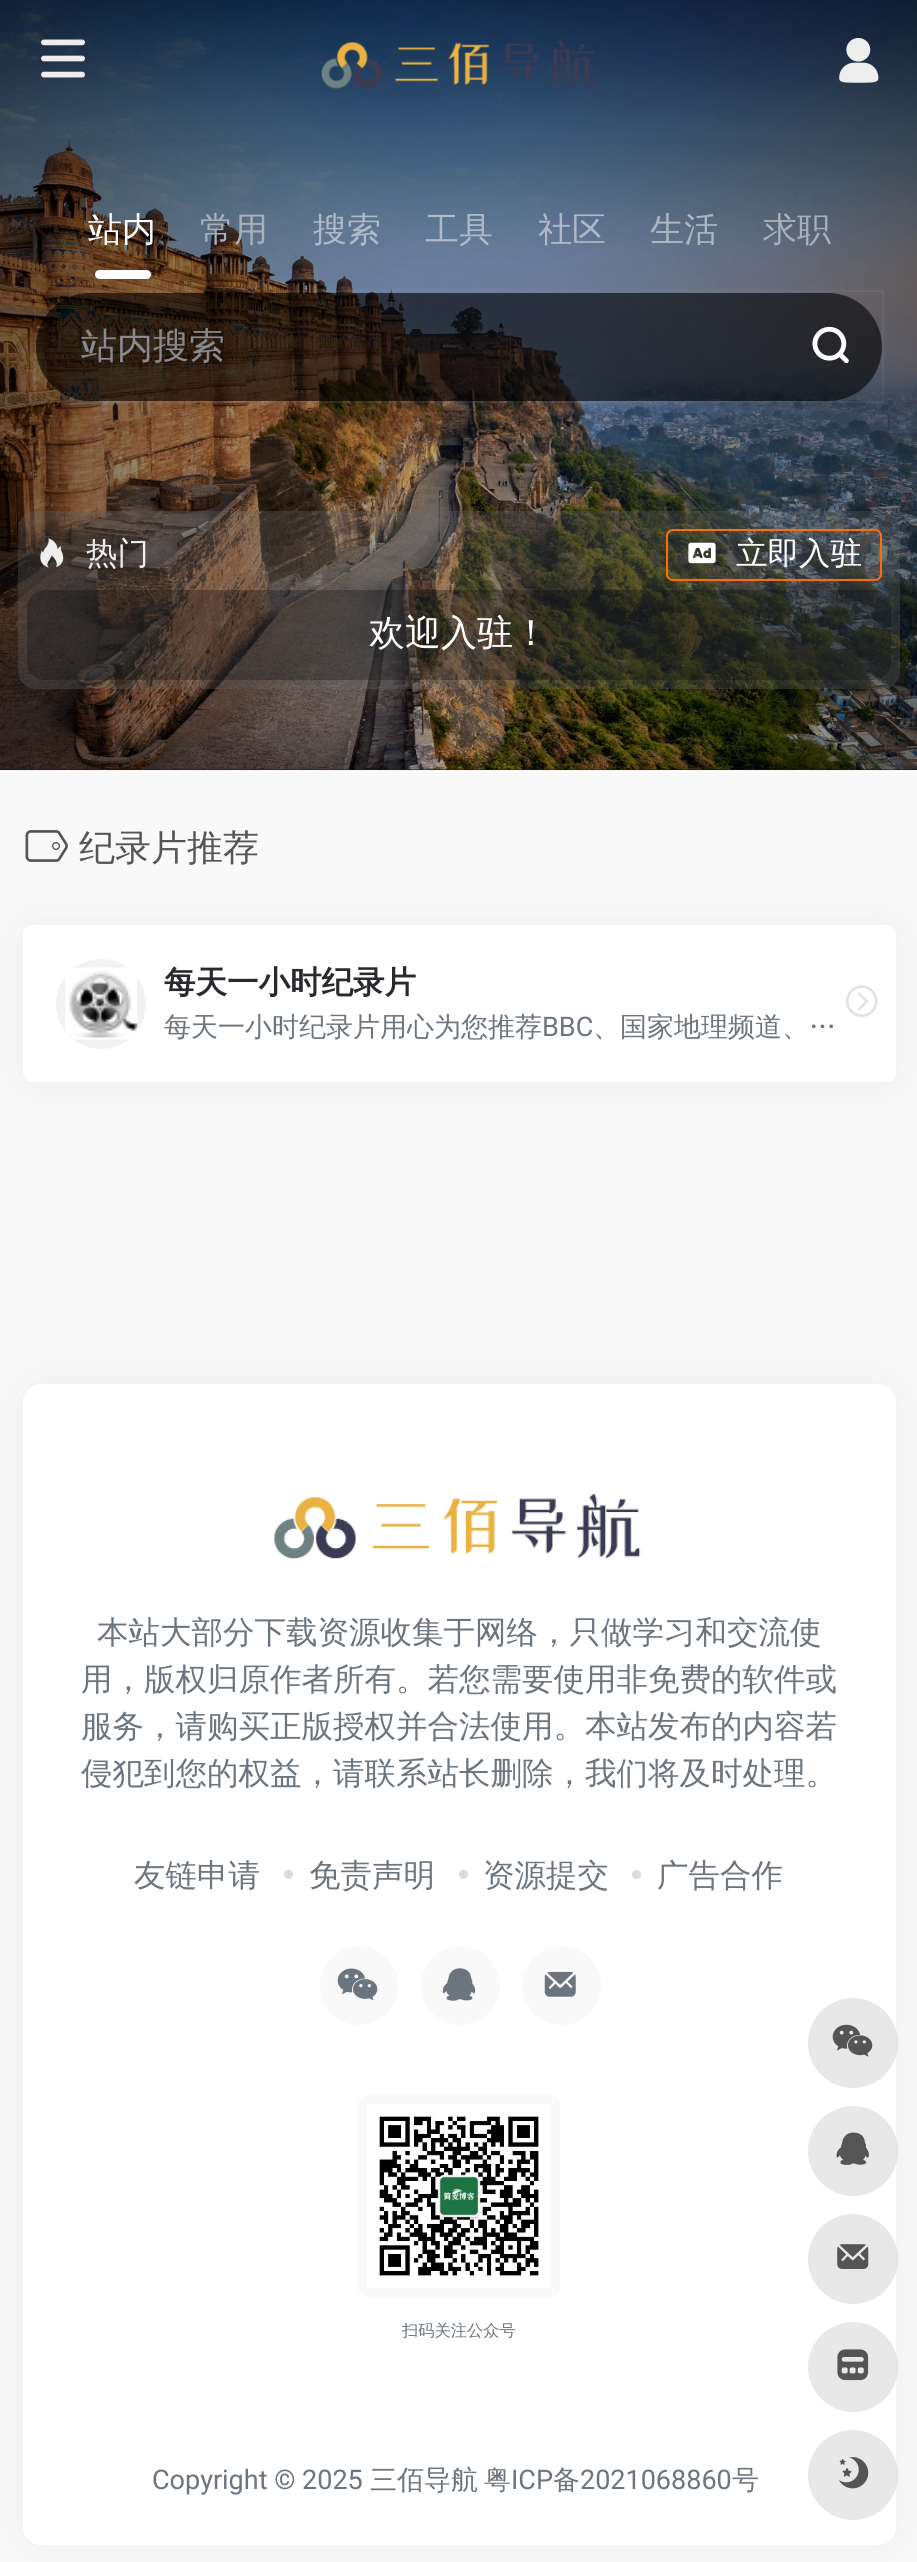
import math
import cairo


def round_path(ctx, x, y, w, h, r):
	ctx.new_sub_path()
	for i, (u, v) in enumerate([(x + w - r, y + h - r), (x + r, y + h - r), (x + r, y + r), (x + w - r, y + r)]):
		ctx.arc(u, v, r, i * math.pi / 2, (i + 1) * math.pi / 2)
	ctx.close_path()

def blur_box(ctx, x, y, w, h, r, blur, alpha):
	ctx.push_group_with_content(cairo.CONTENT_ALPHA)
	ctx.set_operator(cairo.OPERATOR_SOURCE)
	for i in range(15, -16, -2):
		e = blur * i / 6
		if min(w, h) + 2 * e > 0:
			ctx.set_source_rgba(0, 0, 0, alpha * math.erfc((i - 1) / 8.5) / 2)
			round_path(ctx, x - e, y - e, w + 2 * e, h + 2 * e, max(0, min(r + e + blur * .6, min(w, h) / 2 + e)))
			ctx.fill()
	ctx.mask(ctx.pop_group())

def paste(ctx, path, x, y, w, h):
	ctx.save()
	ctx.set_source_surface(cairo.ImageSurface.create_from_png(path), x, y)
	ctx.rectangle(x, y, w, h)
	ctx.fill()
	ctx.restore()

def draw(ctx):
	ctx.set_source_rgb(0.976, 0.976, 0.976)
	ctx.paint()
	ctx.set_source_rgb(0.106, 0.114, 0.122)
	ctx.rectangle(0, 769, 917, 1)
	ctx.fill()
	paste(ctx, 'media/4.png', 0, 0, 917, 770)
	gradient = cairo.LinearGradient(459, 0, 459, 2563)
	gradient.add_color_stop_rgba(0, 0, 0, 0, 0)
	gradient.add_color_stop_rgba(1, 0, 0, 0, 0.4)
	ctx.set_source(gradient)
	ctx.rectangle(0, 138, 917, 632)
	ctx.fill()
	gradient = cairo.RadialGradient(0, 0, 0, 0, 0, 1)
	gradient.set_matrix(cairo.Matrix(1 / 1078, 0, 0, 1 / 3008, -1 * 459 / 1078, -1 * 1281 / 3008))
	gradient.add_color_stop_rgba(0.2, 0, 0, 0, 0)
	gradient.add_color_stop_rgba(1, 0, 0, 0, 0.3)
	ctx.set_source(gradient)
	ctx.rectangle(0, 0, 917, 770)
	ctx.fill()
	gradient = cairo.RadialGradient(0, 0, 0, 0, 0, 1)
	gradient.set_matrix(cairo.Matrix(1 / 649, 0, 0, 1 / 1812, -1 * 459 / 649, -1 * 1281 / 1812))
	gradient.add_color_stop_rgba(0, 0, 0, 0, 0)
	gradient.add_color_stop_rgba(1, 0, 0, 0, 0.5)
	ctx.set_source(gradient)
	ctx.rectangle(0, 0, 917, 770)
	ctx.fill()
	paste(ctx, 'media/1.png', 41, 39, 44, 39)
	paste(ctx, 'media/2.png', 321, 40, 275, 49)
	paste(ctx, 'media/3.png', 839, 38, 40, 45)
	ctx.select_font_face('WenQuanYi Zen Hei Medium')
	ctx.set_font_size(34)
	ctx.set_source_rgb(1, 1, 1)
	ctx.move_to(88, 241)
	ctx.show_text('站内')
	ctx.set_source_rgb(0.659, 0.69, 0.725)
	ctx.move_to(200, 241)
	ctx.show_text('常用')
	ctx.set_source_rgb(0.686, 0.729, 0.784)
	for x, y, s in [
		(313, 241, '搜索'),
		(425, 241, '工具'),
		(538, 241, '社区'),
	]:
		ctx.move_to(x, y)
		ctx.show_text(s)
	ctx.set_source_rgb(0.682, 0.714, 0.757)
	ctx.move_to(650, 241)
	ctx.show_text('生活')
	ctx.set_source_rgb(0.659, 0.69, 0.725)
	ctx.move_to(763, 241)
	ctx.show_text('求职')
	ctx.set_source_rgb(1, 1, 1)
	round_path(ctx, 95, 270, 56, 9, 4.5)
	ctx.fill()
	ctx.set_source_rgba(0, 0, 0, 0.6)
	round_path(ctx, 36, 293, 846, 108, 54)
	ctx.fill()
	ctx.rectangle(35, 291, 848, 111)
	ctx.set_source_rgba(1, 1, 1, 0.05)
	ctx.stroke()
	ctx.set_font_size(36)
	ctx.set_source_rgb(0.533, 0.541, 0.561)
	ctx.move_to(81, 358)
	ctx.show_text('站内搜索')
	paste(ctx, 'media/5.png', 812, 326, 37, 38)
	ctx.set_source_rgba(0.392, 0.392, 0.392, 0.3)
	round_path(ctx, 18, 511, 882, 178, 18)
	ctx.fill()
	paste(ctx, 'media/6.png', 40, 538, 24, 30)
	ctx.set_font_size(31.5)
	ctx.set_source_rgb(0.933, 0.933, 0.933)
	ctx.move_to(86, 564)
	ctx.show_text('热门')
	round_path(ctx, 667, 530, 214, 50, 6)
	ctx.set_source_rgb(1, 0.435, 0.024)
	ctx.stroke()
	paste(ctx, 'media/7.png', 688, 542, 28, 22)
	ctx.set_source_rgb(1, 1, 1)
	ctx.move_to(736, 564)
	ctx.show_text('立即入驻')
	ctx.set_source_rgba(0.039, 0.047, 0.059, 0.3)
	round_path(ctx, 27, 590, 864, 90, 18)
	ctx.fill()
	ctx.set_font_size(36)
	ctx.set_source_rgb(1, 1, 1)
	ctx.move_to(369, 645)
	ctx.show_text('欢迎入驻！')
	paste(ctx, 'media/8.png', 25, 830, 43, 32)
	ctx.set_source_rgb(0.333, 0.333, 0.333)
	ctx.move_to(79, 860)
	ctx.show_text('纪录片推荐')
	ctx.set_source_rgb(0.62, 0.62, 0.62)
	blur_box(ctx, 34, 936, 850, 135, 0, 22.5, 0.2)
	ctx.set_source_rgb(1, 1, 1)
	round_path(ctx, 23, 925, 873, 157, 9)
	ctx.fill()
	ctx.set_source_rgb(0.949, 0.949, 0.949)
	ctx.arc(101, 1004, 45, 0, 2 * math.pi)
	ctx.fill()
	paste(ctx, 'media/9.png', 65, 967, 73, 73)
	ctx.select_font_face('WenQuanYi Zen Hei', cairo.FONT_SLANT_NORMAL, cairo.FONT_WEIGHT_BOLD)
	ctx.set_font_size(31.5)
	ctx.set_source_rgb(0.157, 0.165, 0.176)
	ctx.move_to(164, 993)
	ctx.show_text('每天一小时纪录片')
	ctx.select_font_face('WenQuanYi Zen Hei Medium')
	ctx.set_font_size(27)
	ctx.set_source_rgb(0.424, 0.459, 0.49)
	ctx.move_to(164, 1036)
	ctx.show_text('每天一小时纪录片用心为您推荐')
	ctx.select_font_face('Roboto')
	ctx.move_to(542, 1036)
	ctx.show_text('BBC')
	ctx.select_font_face('WenQuanYi Zen Hei Medium')
	ctx.move_to(593, 1036)
	ctx.show_text('、国家地理频道、…')
	paste(ctx, 'media/10.png', 846, 985, 32, 32)
	ctx.set_source_rgb(0.62, 0.62, 0.62)
	blur_box(ctx, 34, 1395, 850, 1139, 7, 22.5, 0.2)
	ctx.set_source_rgb(1, 1, 1)
	round_path(ctx, 23, 1384, 873, 1161, 18)
	ctx.fill()
	paste(ctx, 'media/11.png', 273, 1493, 368, 67)
	ctx.set_font_size(31.5)
	ctx.set_source_rgb(0.424, 0.459, 0.49)
	for x, y, s in [
		(97, 1643, '本站大部分下载资源收集于网络，只做学习和交流使'),
		(81, 1690, '用，版权归原作者所有。若您需要使用非免费的软件或'),
		(81, 1737, '服务，请购买正版授权并合法使用。本站发布的内容若'),
		(81, 1784, '侵犯到您的权益，请联系站长删除，我们将及时处理。'),
		(134, 1886, '友链申请'),
	]:
		ctx.move_to(x, y)
		ctx.show_text(s)
	ctx.set_source_rgb(0.859, 0.859, 0.859)
	ctx.new_path()
	ctx.arc(288.5, 1874.5, 4.5, 0, 2 * math.pi)
	ctx.fill()
	ctx.set_source_rgb(0.424, 0.459, 0.49)
	ctx.move_to(309, 1886)
	ctx.show_text('免责声明')
	ctx.set_source_rgb(0.859, 0.859, 0.859)
	ctx.new_path()
	ctx.arc(463.5, 1874.5, 4.5, 0, 2 * math.pi)
	ctx.fill()
	ctx.set_source_rgb(0.424, 0.459, 0.49)
	ctx.move_to(483, 1886)
	ctx.show_text('资源提交')
	ctx.set_source_rgb(0.859, 0.859, 0.859)
	ctx.new_path()
	ctx.arc(636.5, 1874.5, 4.5, 0, 2 * math.pi)
	ctx.fill()
	ctx.set_source_rgb(0.424, 0.459, 0.49)
	ctx.move_to(657, 1886)
	ctx.show_text('广告合作')
	ctx.set_source_rgb(0.973, 0.976, 0.98)
	round_path(ctx, 320, 1946, 78, 79, 39)
	ctx.fill()
	paste(ctx, 'media/12.png', 337, 1968, 41, 33)
	ctx.arc(460.5, 1985.5, 39.5, 0, 2 * math.pi)
	ctx.fill()
	paste(ctx, 'media/13.png', 442, 1968, 34, 33)
	ctx.arc(561.5, 1985.5, 39.5, 0, 2 * math.pi)
	ctx.fill()
	paste(ctx, 'media/14.png', 544, 1971, 32, 26)
	round_path(ctx, 358, 2095, 202, 202, 11)
	ctx.fill()
	paste(ctx, 'media/15.png', 367, 2104, 184, 184)
	ctx.set_font_size(16.25)
	ctx.set_source_rgb(0.424, 0.459, 0.49)
	ctx.move_to(402, 2336)
	ctx.show_text('扫码关注公众号')
	ctx.select_font_face('Roboto')
	ctx.set_font_size(27)
	ctx.move_to(152, 2489)
	ctx.show_text('Copyright © 2025')
	ctx.select_font_face('WenQuanYi Zen Hei Medium')
	ctx.move_to(370, 2489)
	ctx.show_text('三佰导航')
	ctx.move_to(484, 2489)
	ctx.show_text('粤')
	ctx.select_font_face('Roboto')
	ctx.move_to(511, 2489)
	ctx.show_text('ICP')
	ctx.select_font_face('WenQuanYi Zen Hei Medium')
	ctx.move_to(553, 2489)
	ctx.show_text('备')
	ctx.select_font_face('Roboto')
	ctx.move_to(580, 2489)
	ctx.show_text('2021068860')
	ctx.select_font_face('WenQuanYi Zen Hei Medium')
	ctx.move_to(732, 2489)
	ctx.show_text('号')
	ctx.set_source_rgba(0.824, 0.824, 0.824, 0.5)
	ctx.new_path()
	ctx.arc(853, 2043, 45, 0, 2 * math.pi)
	ctx.fill()
	paste(ctx, 'media/16.png', 832, 2024, 41, 33)
	ctx.arc(853, 2151, 45, 0, 2 * math.pi)
	ctx.fill()
	paste(ctx, 'media/17.png', 836, 2132, 33, 33)
	ctx.arc(853, 2259, 45, 0, 2 * math.pi)
	ctx.fill()
	paste(ctx, 'media/18.png', 837, 2244, 32, 25)
	ctx.arc(853, 2367, 45, 0, 2 * math.pi)
	ctx.fill()
	paste(ctx, 'media/19.png', 837, 2349, 32, 32)
	ctx.arc(853, 2475, 45, 0, 2 * math.pi)
	ctx.fill()
	paste(ctx, 'media/20.png', 839, 2457, 30, 32)


surface = cairo.ImageSurface(cairo.FORMAT_RGB24, 917, 2562)
ctx = cairo.Context(surface)
options = cairo.FontOptions()
options.set_hint_metrics(cairo.HINT_METRICS_OFF)
options.set_hint_style(cairo.HINT_STYLE_NONE)
ctx.set_font_options(options)
ctx.set_miter_limit(4)
draw(ctx)
surface.write_to_png('image.png')
